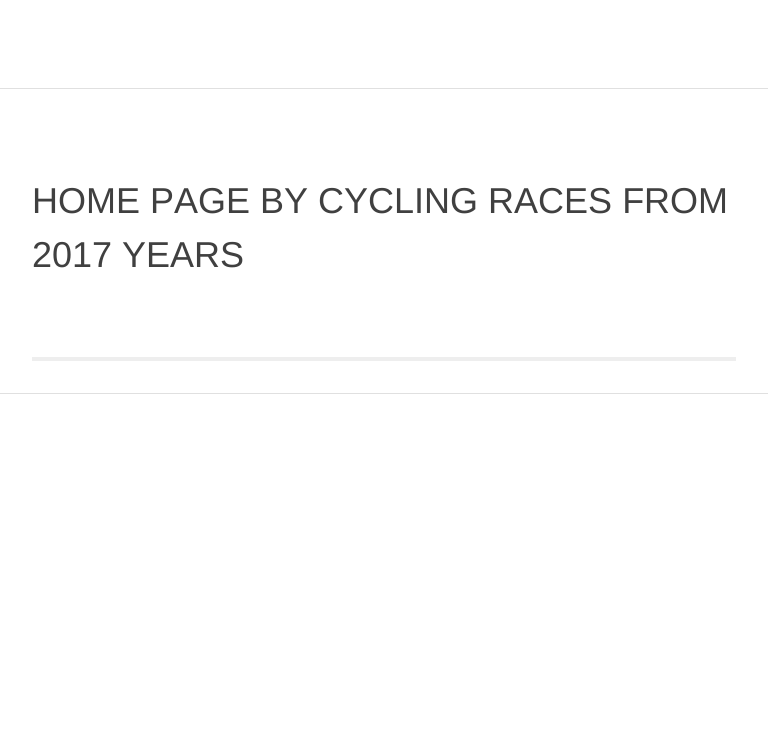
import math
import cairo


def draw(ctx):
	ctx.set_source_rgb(1, 1, 1)
	ctx.paint()
	ctx.set_source_rgb(0.878, 0.878, 0.878)
	ctx.rectangle(0, 88, 768, 1)
	ctx.fill()
	ctx.select_font_face('Liberation Sans')
	ctx.set_font_size(36)
	ctx.set_source_rgb(0.251, 0.251, 0.251)
	ctx.move_to(32, 213)
	ctx.show_text('HOME PAGE BY CYCLING RACES FROM')
	ctx.move_to(32, 267)
	ctx.show_text('2017 YEARS')
	ctx.set_source_rgb(0.933, 0.933, 0.933)
	ctx.rectangle(32, 357, 704, 4)
	ctx.fill()
	ctx.set_source_rgb(0.878, 0.878, 0.878)
	ctx.rectangle(0, 393, 768, 1)
	ctx.fill()


surface = cairo.ImageSurface(cairo.FORMAT_RGB24, 768, 730)
ctx = cairo.Context(surface)
options = cairo.FontOptions()
options.set_hint_metrics(cairo.HINT_METRICS_OFF)
options.set_hint_style(cairo.HINT_STYLE_NONE)
ctx.set_font_options(options)
ctx.set_miter_limit(4)
draw(ctx)
surface.write_to_png('image.png')
